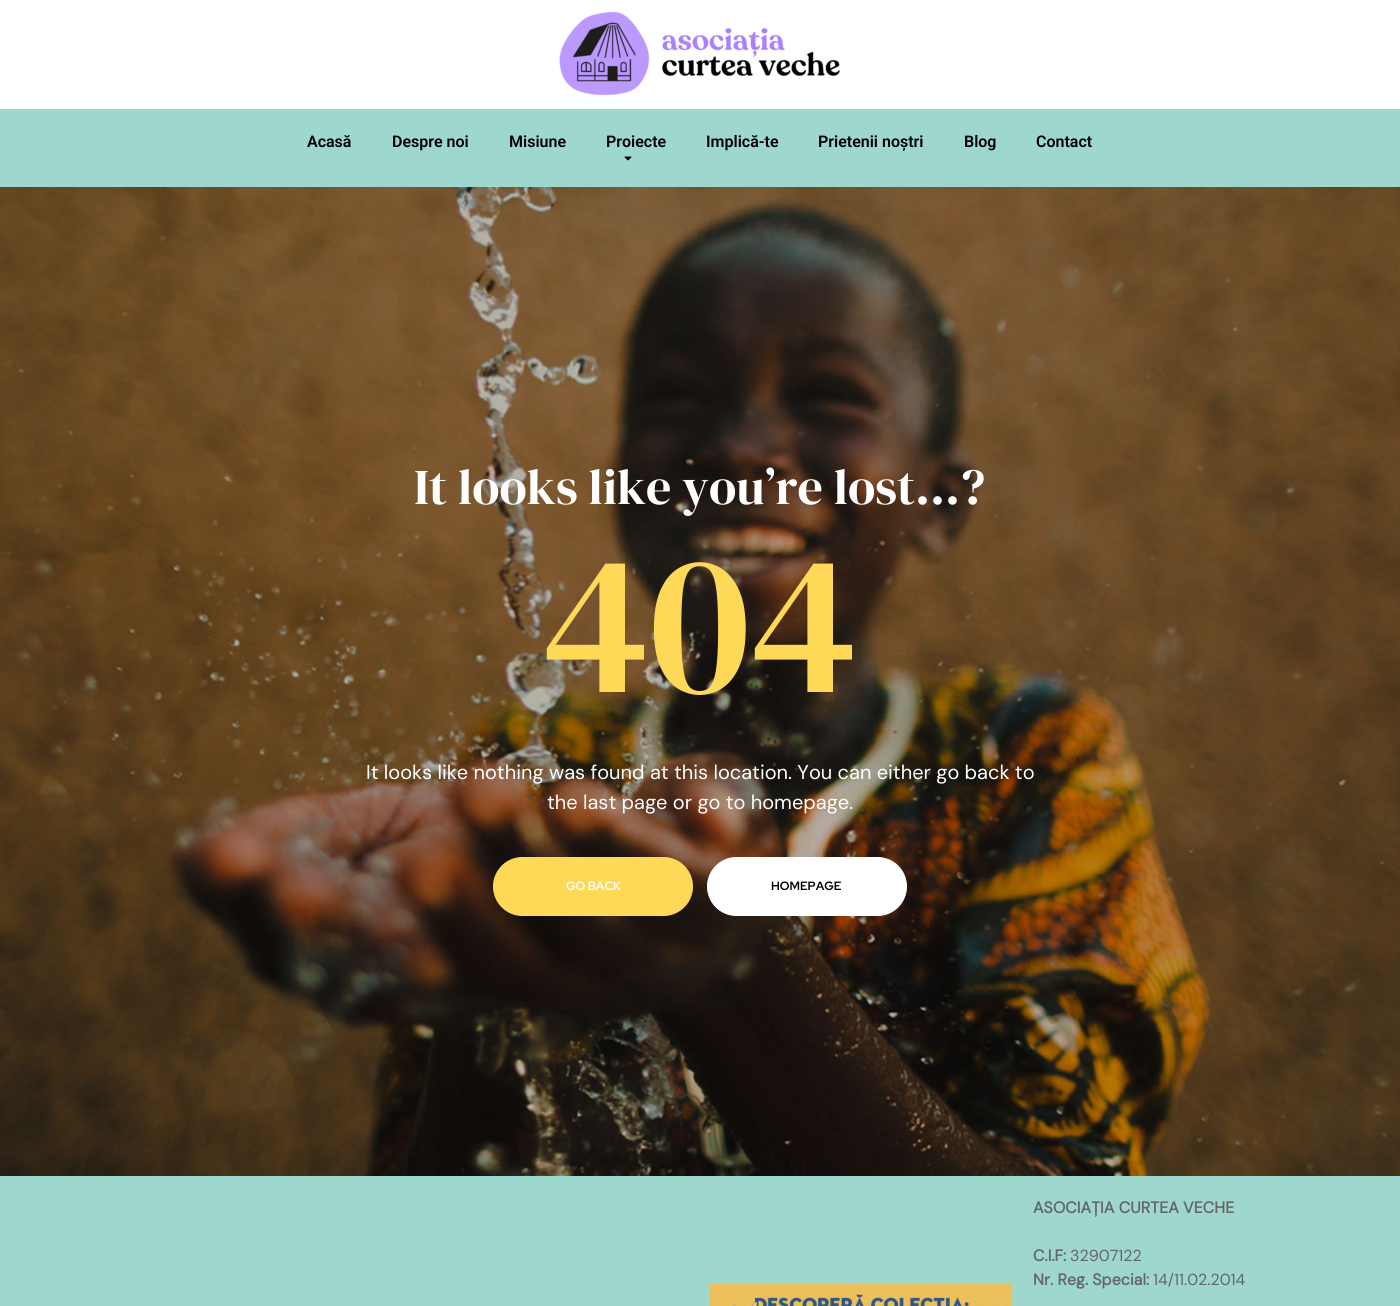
import math
import cairo


def round_path(ctx, x, y, w, h, r):
	ctx.new_sub_path()
	for i, (u, v) in enumerate([(x + w - r, y + h - r), (x + r, y + h - r), (x + r, y + r), (x + w - r, y + r)]):
		ctx.arc(u, v, r, i * math.pi / 2, (i + 1) * math.pi / 2)
	ctx.close_path()

def paste(ctx, path, x, y, w, h):
	ctx.save()
	ctx.set_source_surface(cairo.ImageSurface.create_from_png(path), x, y)
	ctx.rectangle(x, y, w, h)
	ctx.fill()
	ctx.restore()

def draw(ctx):
	ctx.set_source_rgb(1, 1, 1)
	ctx.paint()
	paste(ctx, 'media/1.png', 559, 11, 281, 85)
	ctx.set_source_rgb(0.616, 0.843, 0.808)
	ctx.rectangle(0, 109, 1400, 78)
	ctx.fill()
	ctx.select_font_face('Roboto SemiBold')
	ctx.set_font_size(16)
	ctx.set_source_rgb(0, 0, 0)
	for x, y, s in [
		(307, 147, 'Acasă'),
		(392, 147, 'Despre noi'),
		(509, 147, 'Misiune'),
		(606, 147, 'Proiecte'),
	]:
		ctx.move_to(x, y)
		ctx.show_text(s)
	paste(ctx, 'media/2.png', 624, 156, 8, 5)
	for x, y, s in [
		(706, 147, 'Implică-te'),
		(818, 147, 'Prietenii noștri'),
		(964, 147, 'Blog'),
		(1036, 147, 'Contact'),
	]:
		ctx.move_to(x, y)
		ctx.show_text(s)
	paste(ctx, 'media/3.png', 0, 187, 1400, 989)
	ctx.select_font_face('DM Serif Display')
	ctx.set_font_size(50)
	ctx.set_source_rgb(1, 1, 1)
	ctx.move_to(414, 504)
	ctx.show_text('It looks like you’re lost...?')
	ctx.set_font_size(200)
	ctx.set_source_rgb(0.996, 0.847, 0.341)
	ctx.move_to(542, 692)
	ctx.show_text('404')
	ctx.select_font_face('DM Sans')
	ctx.set_font_size(20)
	ctx.set_source_rgb(1, 1, 1)
	ctx.move_to(366, 779)
	ctx.show_text('It looks like nothing was found at this location. You can either go back to')
	ctx.move_to(547, 809)
	ctx.show_text('the last page or go to homepage.')
	ctx.set_source_rgb(0.996, 0.847, 0.341)
	round_path(ctx, 493.5, 857.5, 199, 58, 29)
	ctx.fill_preserve()
	ctx.set_line_width(1)
	ctx.stroke()
	ctx.select_font_face('Red Hat Display', cairo.FONT_SLANT_NORMAL, cairo.FONT_WEIGHT_BOLD)
	ctx.set_font_size(12)
	ctx.set_source_rgb(1, 1, 1)
	ctx.move_to(566, 890)
	ctx.show_text('GO BACK')
	round_path(ctx, 707.5, 857.5, 199, 58, 29)
	ctx.fill_preserve()
	ctx.stroke()
	ctx.set_source_rgb(0, 0, 0)
	ctx.move_to(771, 890)
	ctx.show_text('HOMEPAGE')
	ctx.set_source_rgb(0.616, 0.843, 0.808)
	ctx.rectangle(0, 1176, 1400, 130)
	ctx.fill()
	ctx.select_font_face('DM Sans', cairo.FONT_SLANT_NORMAL, cairo.FONT_WEIGHT_BOLD)
	ctx.set_font_size(16)
	ctx.set_source_rgb(0.4, 0.4, 0.4)
	ctx.move_to(1033, 1213)
	ctx.show_text('ASOCIAȚIA CURTEA VECHE')
	ctx.move_to(1033, 1261)
	ctx.show_text('C.I.F:')
	ctx.select_font_face('DM Sans')
	ctx.move_to(1070, 1261)
	ctx.show_text('32907122')
	ctx.select_font_face('DM Sans', cairo.FONT_SLANT_NORMAL, cairo.FONT_WEIGHT_BOLD)
	ctx.move_to(1033, 1285)
	ctx.show_text('Nr. Reg. Special:')
	ctx.select_font_face('DM Sans')
	ctx.move_to(1153, 1285)
	ctx.show_text('14/11.02.2014')
	paste(ctx, 'media/4.png', 710, 1284, 303, 22)


surface = cairo.ImageSurface(cairo.FORMAT_RGB24, 1400, 1306)
ctx = cairo.Context(surface)
options = cairo.FontOptions()
options.set_hint_metrics(cairo.HINT_METRICS_OFF)
options.set_hint_style(cairo.HINT_STYLE_NONE)
ctx.set_font_options(options)
ctx.set_miter_limit(4)
draw(ctx)
surface.write_to_png('image.png')
